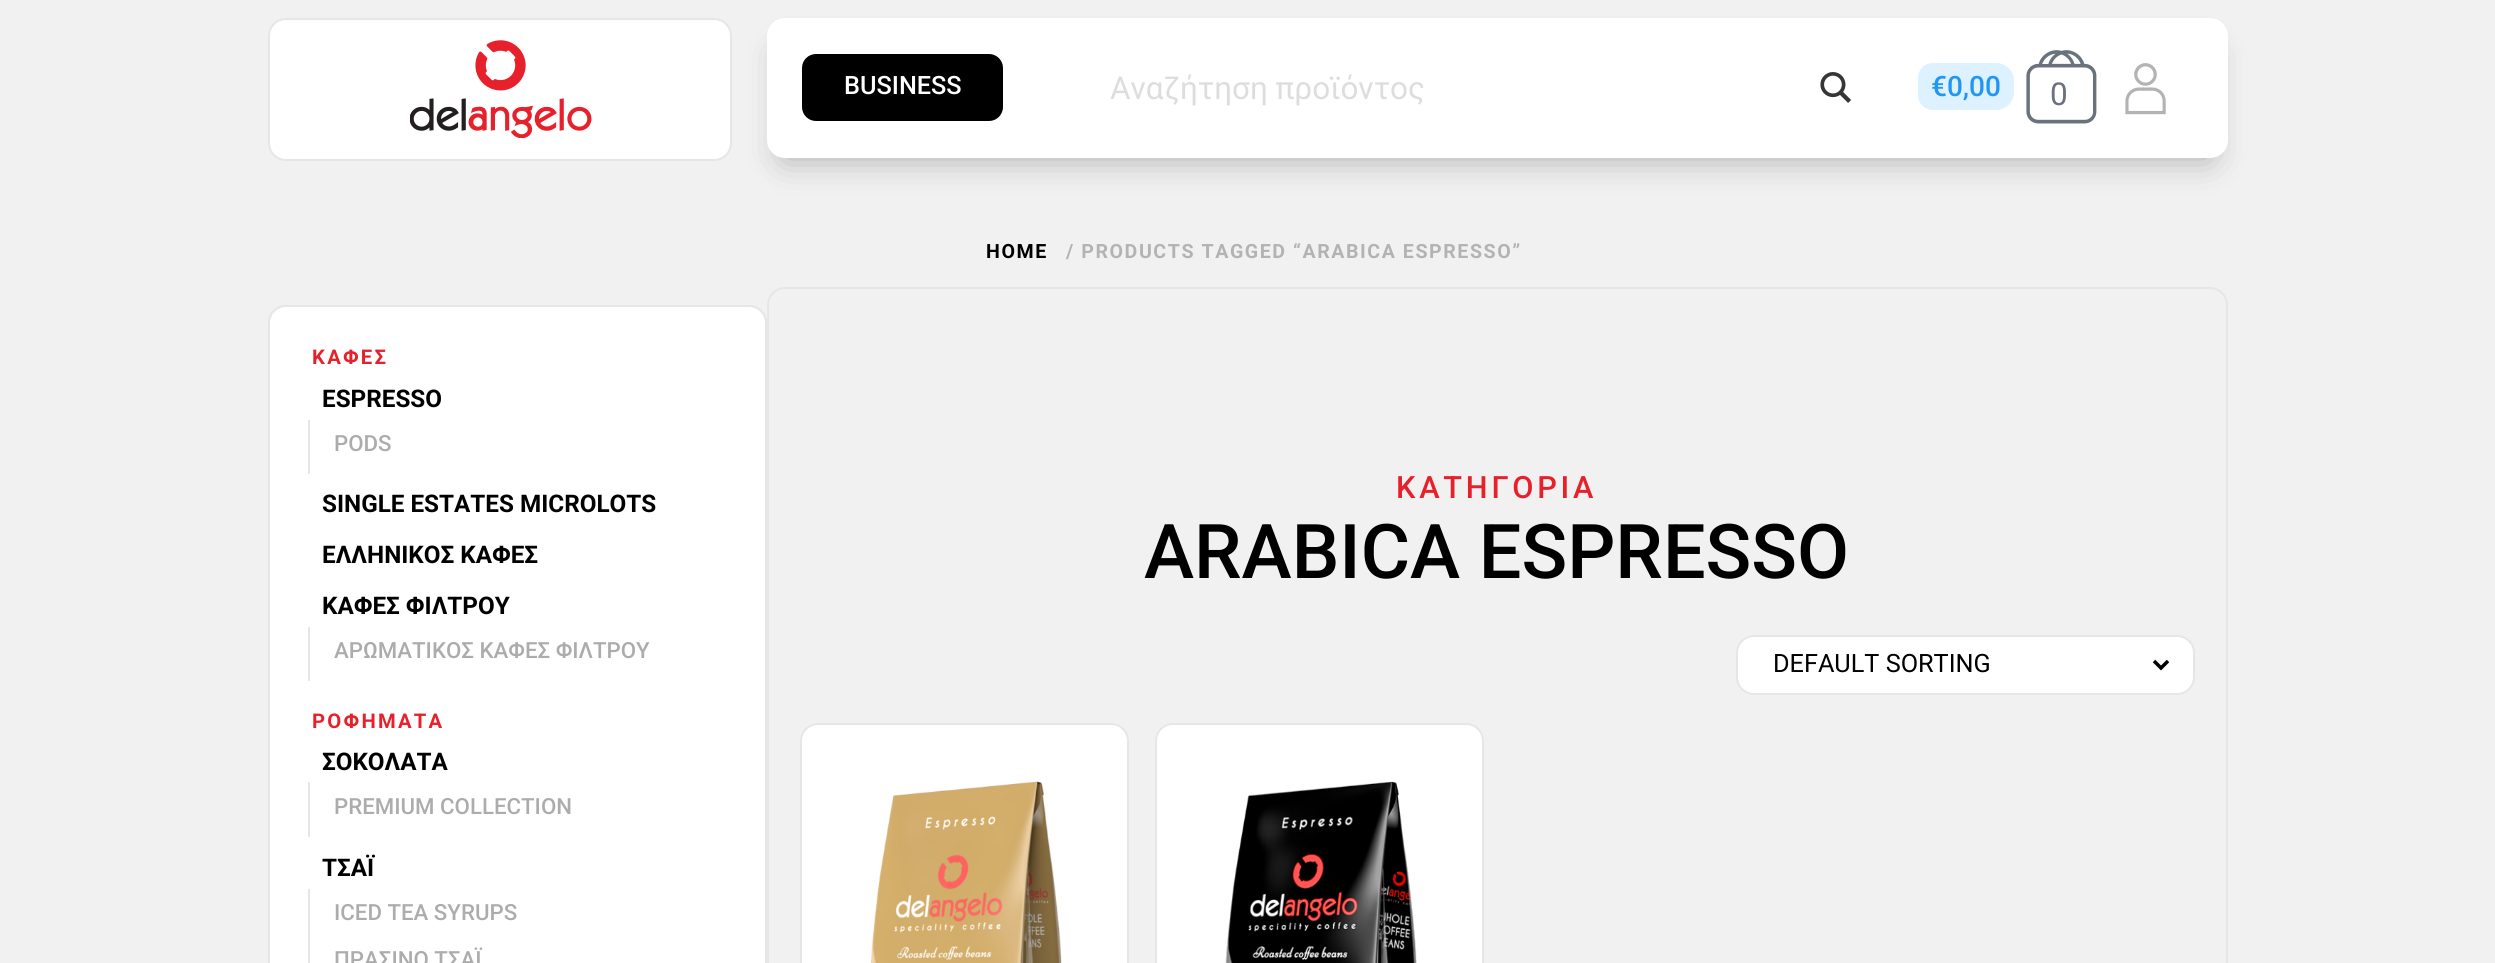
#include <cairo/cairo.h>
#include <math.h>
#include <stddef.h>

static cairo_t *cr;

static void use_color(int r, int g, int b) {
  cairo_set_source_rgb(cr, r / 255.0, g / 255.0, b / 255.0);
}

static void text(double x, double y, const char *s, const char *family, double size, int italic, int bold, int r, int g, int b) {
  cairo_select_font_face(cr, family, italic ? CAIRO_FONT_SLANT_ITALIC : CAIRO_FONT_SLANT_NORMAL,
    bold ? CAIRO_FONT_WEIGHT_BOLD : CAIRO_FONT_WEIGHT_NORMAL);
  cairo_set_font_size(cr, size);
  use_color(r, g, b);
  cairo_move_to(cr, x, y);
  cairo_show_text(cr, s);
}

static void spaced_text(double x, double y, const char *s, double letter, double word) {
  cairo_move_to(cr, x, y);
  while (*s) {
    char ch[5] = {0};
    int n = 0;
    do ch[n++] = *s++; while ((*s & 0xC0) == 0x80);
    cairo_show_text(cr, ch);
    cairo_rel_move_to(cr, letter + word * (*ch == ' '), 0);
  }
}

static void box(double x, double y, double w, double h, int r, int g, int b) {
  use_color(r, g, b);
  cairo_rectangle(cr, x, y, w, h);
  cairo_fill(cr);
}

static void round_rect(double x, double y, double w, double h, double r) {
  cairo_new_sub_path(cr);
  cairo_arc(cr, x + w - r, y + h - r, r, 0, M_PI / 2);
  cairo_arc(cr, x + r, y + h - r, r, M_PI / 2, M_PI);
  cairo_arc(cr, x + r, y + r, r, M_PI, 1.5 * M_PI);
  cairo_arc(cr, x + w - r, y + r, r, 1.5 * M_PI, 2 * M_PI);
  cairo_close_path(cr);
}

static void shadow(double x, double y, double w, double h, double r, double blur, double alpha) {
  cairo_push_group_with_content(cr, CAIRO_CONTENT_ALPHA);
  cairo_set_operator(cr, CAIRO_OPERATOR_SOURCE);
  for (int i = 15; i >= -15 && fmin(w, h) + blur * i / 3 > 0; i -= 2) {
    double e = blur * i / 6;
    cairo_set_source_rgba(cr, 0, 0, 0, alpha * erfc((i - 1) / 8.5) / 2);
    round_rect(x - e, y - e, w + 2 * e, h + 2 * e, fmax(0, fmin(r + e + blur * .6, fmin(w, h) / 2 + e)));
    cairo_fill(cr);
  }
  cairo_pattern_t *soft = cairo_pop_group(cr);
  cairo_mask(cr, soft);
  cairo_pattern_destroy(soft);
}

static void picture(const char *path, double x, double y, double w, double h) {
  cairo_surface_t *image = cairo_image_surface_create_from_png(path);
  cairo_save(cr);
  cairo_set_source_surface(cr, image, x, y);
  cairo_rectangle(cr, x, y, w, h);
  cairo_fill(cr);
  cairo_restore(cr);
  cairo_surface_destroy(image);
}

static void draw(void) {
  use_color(241, 241, 241);
  cairo_paint(cr);
  use_color(0, 0, 0);
  shadow(784, 53, 1426, 105, 0, 17.5, 0.3);
  use_color(255, 255, 255);
  round_rect(269, 19, 462, 141, 17);
  cairo_fill_preserve(cr);
  use_color(230, 230, 230);
  cairo_stroke(cr);
  picture("img_01.png", 410, 40, 182, 98);
  use_color(255, 255, 255);
  round_rect(767, 18, 1461, 140, 18);
  cairo_fill(cr);
  use_color(0, 0, 0);
  round_rect(802, 54, 201, 67, 14);
  cairo_fill(cr);
  picture("img_02.png", 1820, 72, 31, 31);
  use_color(222, 241, 255);
  cairo_new_path(cr);
  cairo_move_to(cr, 1933, 63);
  cairo_line_to(cr, 1948, 63);
  cairo_line_to(cr, 1948, 110);
  cairo_line_to(cr, 1933, 110);
  cairo_curve_to(cr, 1924.5, 110, 1918, 103.5, 1918, 95);
  cairo_line_to(cr, 1918, 78);
  cairo_curve_to(cr, 1918, 69.5, 1924.5, 63, 1933, 63);
  cairo_close_path(cr);
  cairo_fill(cr);
  cairo_new_path(cr);
  cairo_move_to(cr, 1948, 63);
  cairo_line_to(cr, 1996, 63);
  cairo_curve_to(cr, 2006, 63, 2014, 71, 2014, 81);
  cairo_line_to(cr, 2014, 92);
  cairo_curve_to(cr, 2014, 102, 2006, 110, 1996, 110);
  cairo_line_to(cr, 1948, 110);
  cairo_close_path(cr);
  cairo_fill(cr);
  picture("img_03.png", 2026, 50, 71, 74);
  picture("img_04.png", 2125, 63, 41, 52);
  round_rect(269, 306, 497, 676, 17);
  use_color(230, 230, 230);
  cairo_stroke(cr);
  use_color(255, 255, 255);
  round_rect(269, 306, 497, 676, 17);
  cairo_fill_preserve(cr);
  use_color(230, 230, 230);
  cairo_stroke(cr);
  box(308, 420, 2, 54, 230, 230, 230);
  box(308, 627, 2, 54, 230, 230, 230);
  box(308, 782, 2, 55, 230, 230, 230);
  box(308, 889, 2, 74, 230, 230, 230);
  round_rect(768, 288, 1459, 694, 17);
  cairo_stroke(cr);
  use_color(255, 255, 255);
  round_rect(1737, 636, 457, 58, 17);
  cairo_fill_preserve(cr);
  use_color(230, 230, 230);
  cairo_stroke(cr);
  cairo_new_path(cr);
  cairo_move_to(cr, 2154, 661);
  cairo_line_to(cr, 2161, 668);
  cairo_line_to(cr, 2168, 661);
  use_color(0, 0, 0);
  cairo_set_line_width(cr, 3.5);
  cairo_stroke(cr);
  use_color(255, 255, 255);
  round_rect(801, 724, 327, 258, 17);
  cairo_fill_preserve(cr);
  use_color(230, 230, 230);
  cairo_set_line_width(cr, 2);
  cairo_stroke(cr);
  picture("img_05.png", 871, 781, 191, 182);
  use_color(255, 255, 255);
  round_rect(1156, 724, 327, 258, 17);
  cairo_fill_preserve(cr);
  use_color(230, 230, 230);
  cairo_stroke(cr);
  picture("img_06.png", 1225, 781, 192, 182);
  text(844, 94, "BUSINESS", "Roboto Medium", 25.25, 0, 0, 255, 255, 255);
  text(1110, 99, "Αναζήτηση προϊόντος", "Roboto", 31.5, 0, 0, 221, 221, 221);
  text(1931, 96, "€0,00", "Roboto Medium", 28, 0, 0, 33, 150, 243);
  text(2050, 105, "0", "Roboto", 31.5, 0, 0, 105, 114, 125);
  cairo_select_font_face(cr, "Roboto", CAIRO_FONT_SLANT_NORMAL, CAIRO_FONT_WEIGHT_BOLD);
  cairo_set_font_size(cr, 19.6);
  use_color(0, 0, 0);
  spaced_text(986, 258, "HOME", 1.55, 0);
  use_color(179, 179, 179);
  spaced_text(1066, 258, "/ PRODUCTS TAGGED “ARABICA ESPRESSO”", 1.55, 0);
  cairo_set_font_size(cr, 20.25);
  use_color(231, 33, 43);
  spaced_text(312, 364, "ΚΑΦΕΣ", 2.25, 0);
  text(322, 407, "ESPRESSO", "Roboto", 24.25, 0, 1, 0, 0, 0);
  text(334, 451, "PODS", "Roboto Medium", 22.25, 0, 0, 172, 172, 172);
  text(322, 512, "SINGLE ESTATES MICROLOTS", "Roboto", 24.25, 0, 1, 0, 0, 0);
  text(322, 563, "ΕΛΛΗΝΙΚΟΣ ΚΑΦΕΣ", "Roboto", 24.25, 0, 1, 0, 0, 0);
  text(322, 614, "ΚΑΦΕΣ ΦΙΛΤΡΟΥ", "Roboto", 24.25, 0, 1, 0, 0, 0);
  text(334, 658, "ΑΡΩΜΑΤΙΚΟΣ ΚΑΦΕΣ ΦΙΛΤΡΟΥ", "Roboto Medium", 22.25, 0, 0, 172, 172, 172);
  cairo_select_font_face(cr, "Roboto", CAIRO_FONT_SLANT_NORMAL, CAIRO_FONT_WEIGHT_BOLD);
  cairo_set_font_size(cr, 20.25);
  use_color(231, 33, 43);
  spaced_text(312, 728, "ΡΟΦΗΜΑΤΑ", 2.25, 0);
  text(322, 770, "ΣΟΚΟΛΑΤΑ", "Roboto", 24.25, 0, 1, 0, 0, 0);
  text(334, 814, "PREMIUM COLLECTION", "Roboto Medium", 22.25, 0, 0, 172, 172, 172);
  text(322, 876, "ΤΣΑΪ", "Roboto", 24.25, 0, 1, 0, 0, 0);
  text(334, 920, "ICED TEA SYRUPS", "Roboto Medium", 22.25, 0, 0, 172, 172, 172);
  text(334, 967, "ΠΡΑΣΙΝΟ ΤΣΑΪ", "Roboto Medium", 22.25, 0, 0, 172, 172, 172);
  cairo_set_font_size(cr, 30.75);
  use_color(231, 33, 43);
  spaced_text(1396, 498, "ΚΑΤΗΓΟΡΙΑ", 3.75, 0);
  text(1144, 578, "ARABICA ESPRESSO", "Roboto Medium", 75.5, 0, 0, 0, 0, 0);
  text(1773, 672, "DEFAULT SORTING", "Roboto", 25.25, 0, 0, 0, 0, 0);
}

int main(void) {
  cairo_surface_t *surface = cairo_image_surface_create(CAIRO_FORMAT_RGB24, 2495, 963);
  cr = cairo_create(surface);
  cairo_font_options_t *options = cairo_font_options_create();
  cairo_font_options_set_hint_metrics(options, CAIRO_HINT_METRICS_OFF);
  cairo_font_options_set_hint_style(options, CAIRO_HINT_STYLE_NONE);
  cairo_set_font_options(cr, options);
  cairo_set_miter_limit(cr, 4);
  draw();
  cairo_surface_write_to_png(surface, "out.png");
  cairo_font_options_destroy(options);
  cairo_destroy(cr);
  cairo_surface_destroy(surface);
  return 0;
}
